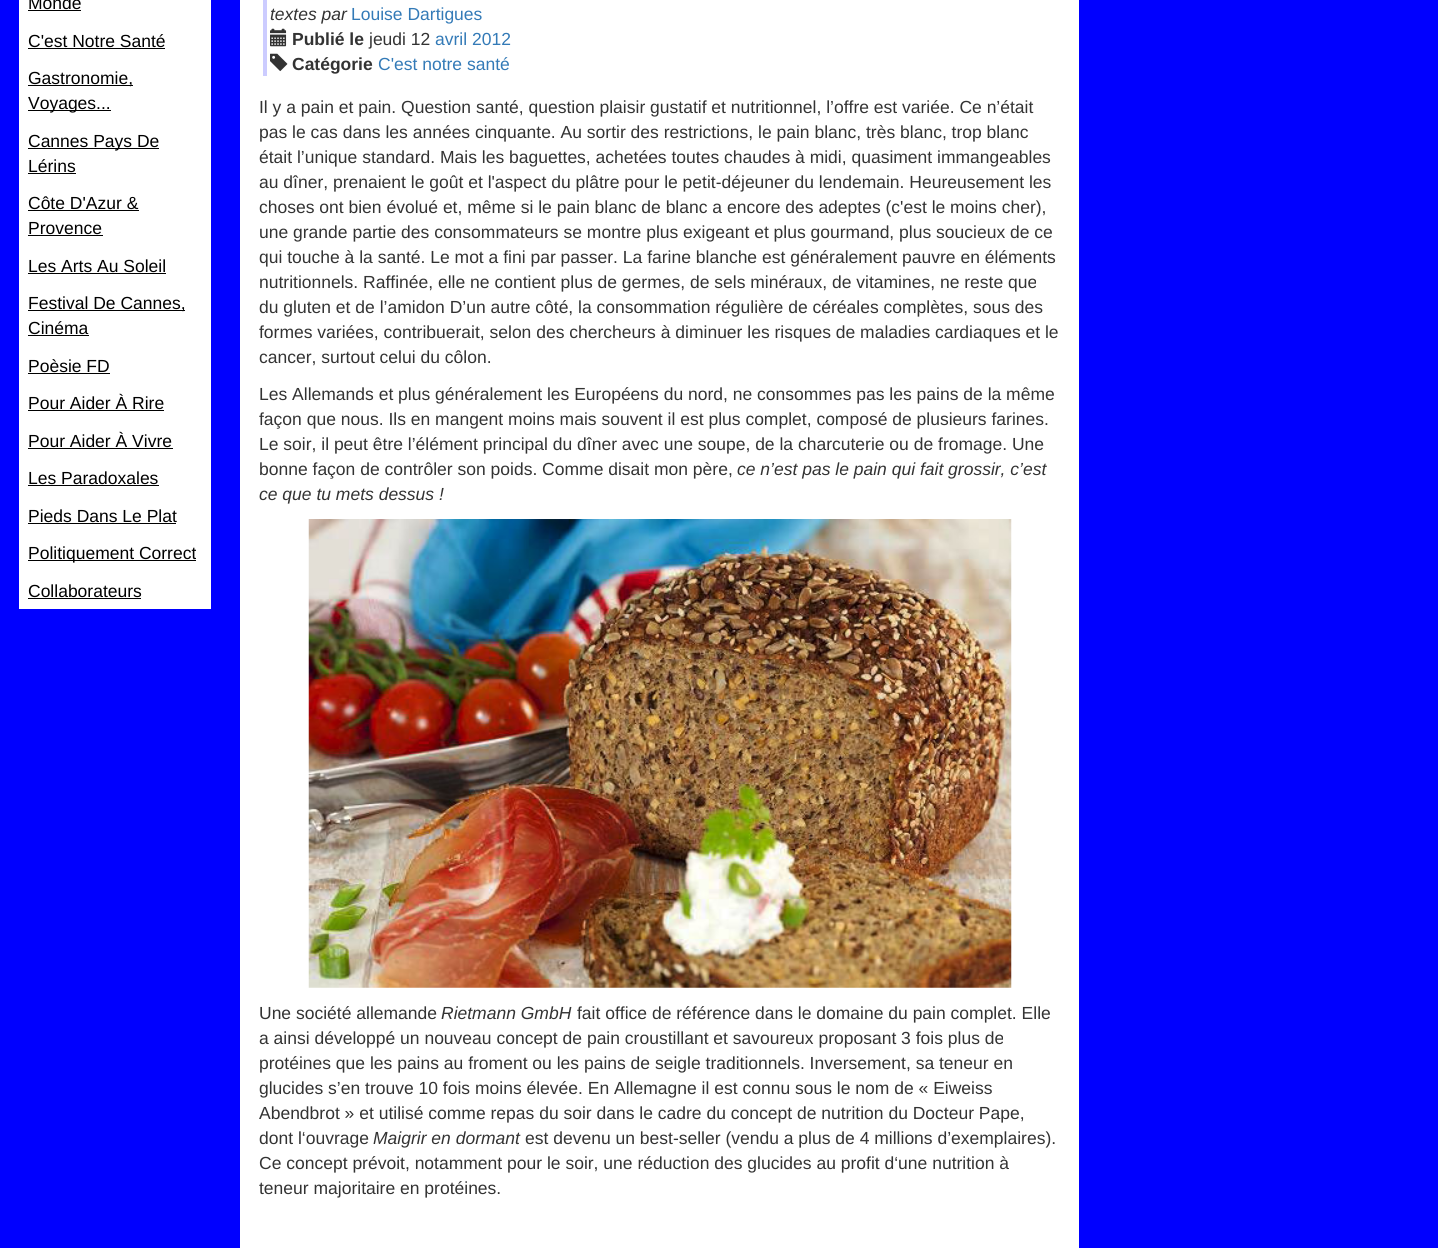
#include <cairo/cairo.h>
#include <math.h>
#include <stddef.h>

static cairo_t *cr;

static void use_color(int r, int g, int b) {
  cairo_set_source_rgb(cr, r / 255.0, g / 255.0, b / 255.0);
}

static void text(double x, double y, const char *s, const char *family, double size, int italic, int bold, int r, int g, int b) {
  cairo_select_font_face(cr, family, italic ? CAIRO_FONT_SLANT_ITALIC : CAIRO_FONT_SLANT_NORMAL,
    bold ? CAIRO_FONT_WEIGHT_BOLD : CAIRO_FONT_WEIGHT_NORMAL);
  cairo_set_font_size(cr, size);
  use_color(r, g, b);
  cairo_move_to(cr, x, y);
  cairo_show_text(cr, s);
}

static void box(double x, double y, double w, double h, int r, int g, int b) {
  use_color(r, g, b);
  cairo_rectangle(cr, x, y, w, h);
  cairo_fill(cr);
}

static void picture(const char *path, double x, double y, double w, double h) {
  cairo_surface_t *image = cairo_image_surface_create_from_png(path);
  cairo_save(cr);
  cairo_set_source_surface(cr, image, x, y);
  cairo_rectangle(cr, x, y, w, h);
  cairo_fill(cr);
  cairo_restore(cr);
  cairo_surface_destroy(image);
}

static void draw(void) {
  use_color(0, 0, 255);
  cairo_paint(cr);
  box(19, 0, 192, 609, 255, 255, 255);
  box(28, 10, 53, 1, 0, 0, 0);
  box(28, 48, 137, 1, 0, 0, 0);
  box(28, 85, 105, 1, 0, 0, 0);
  box(28, 110, 83, 1, 0, 0, 0);
  box(28, 148, 131, 1, 0, 0, 0);
  box(28, 173, 48, 1, 0, 0, 0);
  box(28, 210, 111, 1, 0, 0, 0);
  box(28, 235, 75, 1, 0, 0, 0);
  box(28, 273, 138, 1, 0, 0, 0);
  box(28, 310, 157, 1, 0, 0, 0);
  box(28, 335, 61, 1, 0, 0, 0);
  box(28, 373, 82, 1, 0, 0, 0);
  box(28, 410, 136, 1, 0, 0, 0);
  box(28, 448, 145, 1, 0, 0, 0);
  box(28, 485, 131, 1, 0, 0, 0);
  box(28, 523, 148, 1, 0, 0, 0);
  box(28, 560, 168, 1, 0, 0, 0);
  box(28, 598, 113, 1, 0, 0, 0);
  box(240, 0, 839, 1248, 255, 255, 255);
  box(263, 0, 4, 76, 204, 204, 255);
  picture("img_01.png", 270, 28, 17, 19);
  picture("img_02.png", 270, 53, 18, 19);
  picture("img_03.png", 308, 519, 704, 469);
  text(28, 9, "Monde", "Liberation Sans", 17.5, 0, 0, 0, 0, 0);
  text(28, 47, "C'est Notre Santé", "Liberation Sans", 17.5, 0, 0, 0, 0, 0);
  text(28, 84, "Gastronomie,", "Liberation Sans", 17.5, 0, 0, 0, 0, 0);
  text(28, 109, "Voyages...", "Liberation Sans", 17.5, 0, 0, 0, 0, 0);
  text(28, 147, "Cannes Pays De", "Liberation Sans", 17.5, 0, 0, 0, 0, 0);
  text(28, 172, "Lérins", "Liberation Sans", 17.5, 0, 0, 0, 0, 0);
  text(28, 209, "Côte D'Azur &", "Liberation Sans", 17.5, 0, 0, 0, 0, 0);
  text(28, 234, "Provence", "Liberation Sans", 17.5, 0, 0, 0, 0, 0);
  text(28, 272, "Les Arts Au Soleil", "Liberation Sans", 17.5, 0, 0, 0, 0, 0);
  text(28, 309, "Festival De Cannes,", "Liberation Sans", 17.5, 0, 0, 0, 0, 0);
  text(28, 334, "Cinéma", "Liberation Sans", 17.5, 0, 0, 0, 0, 0);
  text(28, 372, "Poèsie FD", "Liberation Sans", 17.5, 0, 0, 0, 0, 0);
  text(28, 409, "Pour Aider À Rire", "Liberation Sans", 17.5, 0, 0, 0, 0, 0);
  text(28, 447, "Pour Aider À Vivre", "Liberation Sans", 17.5, 0, 0, 0, 0, 0);
  text(28, 484, "Les Paradoxales", "Liberation Sans", 17.5, 0, 0, 0, 0, 0);
  text(28, 522, "Pieds Dans Le Plat", "Liberation Sans", 17.5, 0, 0, 0, 0, 0);
  text(28, 559, "Politiquement Correct", "Liberation Sans", 17.5, 0, 0, 0, 0, 0);
  text(28, 597, "Collaborateurs", "Liberation Sans", 17.5, 0, 0, 0, 0, 0);
  text(270, 20, "textes par", "Liberation Sans", 17.5, 1, 0, 51, 51, 51);
  text(351, 20, "Louise Dartigues", "Liberation Sans", 17.5, 0, 0, 51, 122, 183);
  text(292, 45, "Publié le", "Liberation Sans", 17.5, 0, 1, 51, 51, 51);
  text(369, 45, "jeudi 12", "Liberation Sans", 17.5, 0, 0, 51, 51, 51);
  text(435, 45, "avril 2012", "Liberation Sans", 17.5, 0, 0, 51, 122, 183);
  text(292, 70, "Catégorie", "Liberation Sans", 17.5, 0, 1, 51, 51, 51);
  text(378, 70, "C'est notre santé", "Liberation Sans", 17.5, 0, 0, 51, 122, 183);
  text(259, 113, "Il y a pain et pain. Question santé, question plaisir gustatif et nutritionnel, l’offre est variée. Ce n’était", "Liberation Sans", 17.5, 0, 0, 51, 51, 51);
  text(259, 138, "pas le cas dans les années cinquante. Au sortir des restrictions, le pain blanc, très blanc, trop blanc", "Liberation Sans", 17.5, 0, 0, 51, 51, 51);
  text(259, 163, "était l’unique standard. Mais les baguettes, achetées toutes chaudes à midi, quasiment immangeables", "Liberation Sans", 17.5, 0, 0, 51, 51, 51);
  text(259, 188, "au dîner, prenaient le goût et l'aspect du plâtre pour le petit-déjeuner du lendemain. Heureusement les", "Liberation Sans", 17.5, 0, 0, 51, 51, 51);
  text(259, 213, "choses ont bien évolué et, même si le pain blanc de blanc a encore des adeptes (c'est le moins cher),", "Liberation Sans", 17.5, 0, 0, 51, 51, 51);
  text(259, 238, "une grande partie des consommateurs se montre plus exigeant et plus gourmand, plus soucieux de ce", "Liberation Sans", 17.5, 0, 0, 51, 51, 51);
  text(259, 263, "qui touche à la santé. Le mot a fini par passer. La farine blanche est généralement pauvre en éléments", "Liberation Sans", 17.5, 0, 0, 51, 51, 51);
  text(259, 288, "nutritionnels. Raffinée, elle ne contient plus de germes, de sels minéraux, de vitamines, ne reste que", "Liberation Sans", 17.5, 0, 0, 51, 51, 51);
  text(259, 313, "du gluten et de l’amidon D’un autre côté, la consommation régulière de céréales complètes, sous des", "Liberation Sans", 17.5, 0, 0, 51, 51, 51);
  text(259, 338, "formes variées, contribuerait, selon des chercheurs à diminuer les risques de maladies cardiaques et le", "Liberation Sans", 17.5, 0, 0, 51, 51, 51);
  text(259, 363, "cancer, surtout celui du côlon.", "Liberation Sans", 17.5, 0, 0, 51, 51, 51);
  text(259, 400, "Les Allemands et plus généralement les Européens du nord, ne consommes pas les pains de la même", "Liberation Sans", 17.5, 0, 0, 51, 51, 51);
  text(259, 425, "façon que nous. Ils en mangent moins mais souvent il est plus complet, composé de plusieurs farines.", "Liberation Sans", 17.5, 0, 0, 51, 51, 51);
  text(259, 450, "Le soir, il peut être l’élément principal du dîner avec une soupe, de la charcuterie ou de fromage. Une", "Liberation Sans", 17.5, 0, 0, 51, 51, 51);
  text(259, 475, "bonne façon de contrôler son poids. Comme disait mon père,", "Liberation Sans", 17.5, 0, 0, 51, 51, 51);
  text(737, 475, "ce n’est pas le pain qui fait grossir, c’est", "Liberation Sans", 17.5, 1, 0, 51, 51, 51);
  text(259, 500, "ce que tu mets dessus !", "Liberation Sans", 17.5, 1, 0, 51, 51, 51);
  text(259, 1019, "Une société allemande", "Liberation Sans", 17.5, 0, 0, 51, 51, 51);
  text(441, 1019, "Rietmann GmbH", "Liberation Sans", 17.5, 1, 0, 51, 51, 51);
  text(577, 1019, "fait office de référence dans le domaine du pain complet. Elle", "Liberation Sans", 17.5, 0, 0, 51, 51, 51);
  text(259, 1044, "a ainsi développé un nouveau concept de pain croustillant et savoureux proposant 3 fois plus de", "Liberation Sans", 17.5, 0, 0, 51, 51, 51);
  text(259, 1069, "protéines que les pains au froment ou les pains de seigle traditionnels. Inversement, sa teneur en", "Liberation Sans", 17.5, 0, 0, 51, 51, 51);
  text(259, 1094, "glucides s’en trouve 10 fois moins élevée. En Allemagne il est connu sous le nom de « Eiweiss", "Liberation Sans", 17.5, 0, 0, 51, 51, 51);
  text(259, 1119, "Abendbrot » et utilisé comme repas du soir dans le cadre du concept de nutrition du Docteur Pape,", "Liberation Sans", 17.5, 0, 0, 51, 51, 51);
  text(259, 1144, "dont l‘ouvrage", "Liberation Sans", 17.5, 0, 0, 51, 51, 51);
  text(373, 1144, "Maigrir en dormant", "Liberation Sans", 17.5, 1, 0, 51, 51, 51);
  text(525, 1144, "est devenu un best-seller (vendu a plus de 4 millions d’exemplaires).", "Liberation Sans", 17.5, 0, 0, 51, 51, 51);
  text(259, 1169, "Ce concept prévoit, notamment pour le soir, une réduction des glucides au profit d‘une nutrition à", "Liberation Sans", 17.5, 0, 0, 51, 51, 51);
  text(259, 1194, "teneur majoritaire en protéines.", "Liberation Sans", 17.5, 0, 0, 51, 51, 51);
}

int main(void) {
  cairo_surface_t *surface = cairo_image_surface_create(CAIRO_FORMAT_RGB24, 1438, 1248);
  cr = cairo_create(surface);
  cairo_font_options_t *options = cairo_font_options_create();
  cairo_font_options_set_hint_metrics(options, CAIRO_HINT_METRICS_OFF);
  cairo_font_options_set_hint_style(options, CAIRO_HINT_STYLE_NONE);
  cairo_set_font_options(cr, options);
  cairo_set_miter_limit(cr, 4);
  draw();
  cairo_surface_write_to_png(surface, "out.png");
  cairo_font_options_destroy(options);
  cairo_destroy(cr);
  cairo_surface_destroy(surface);
  return 0;
}
